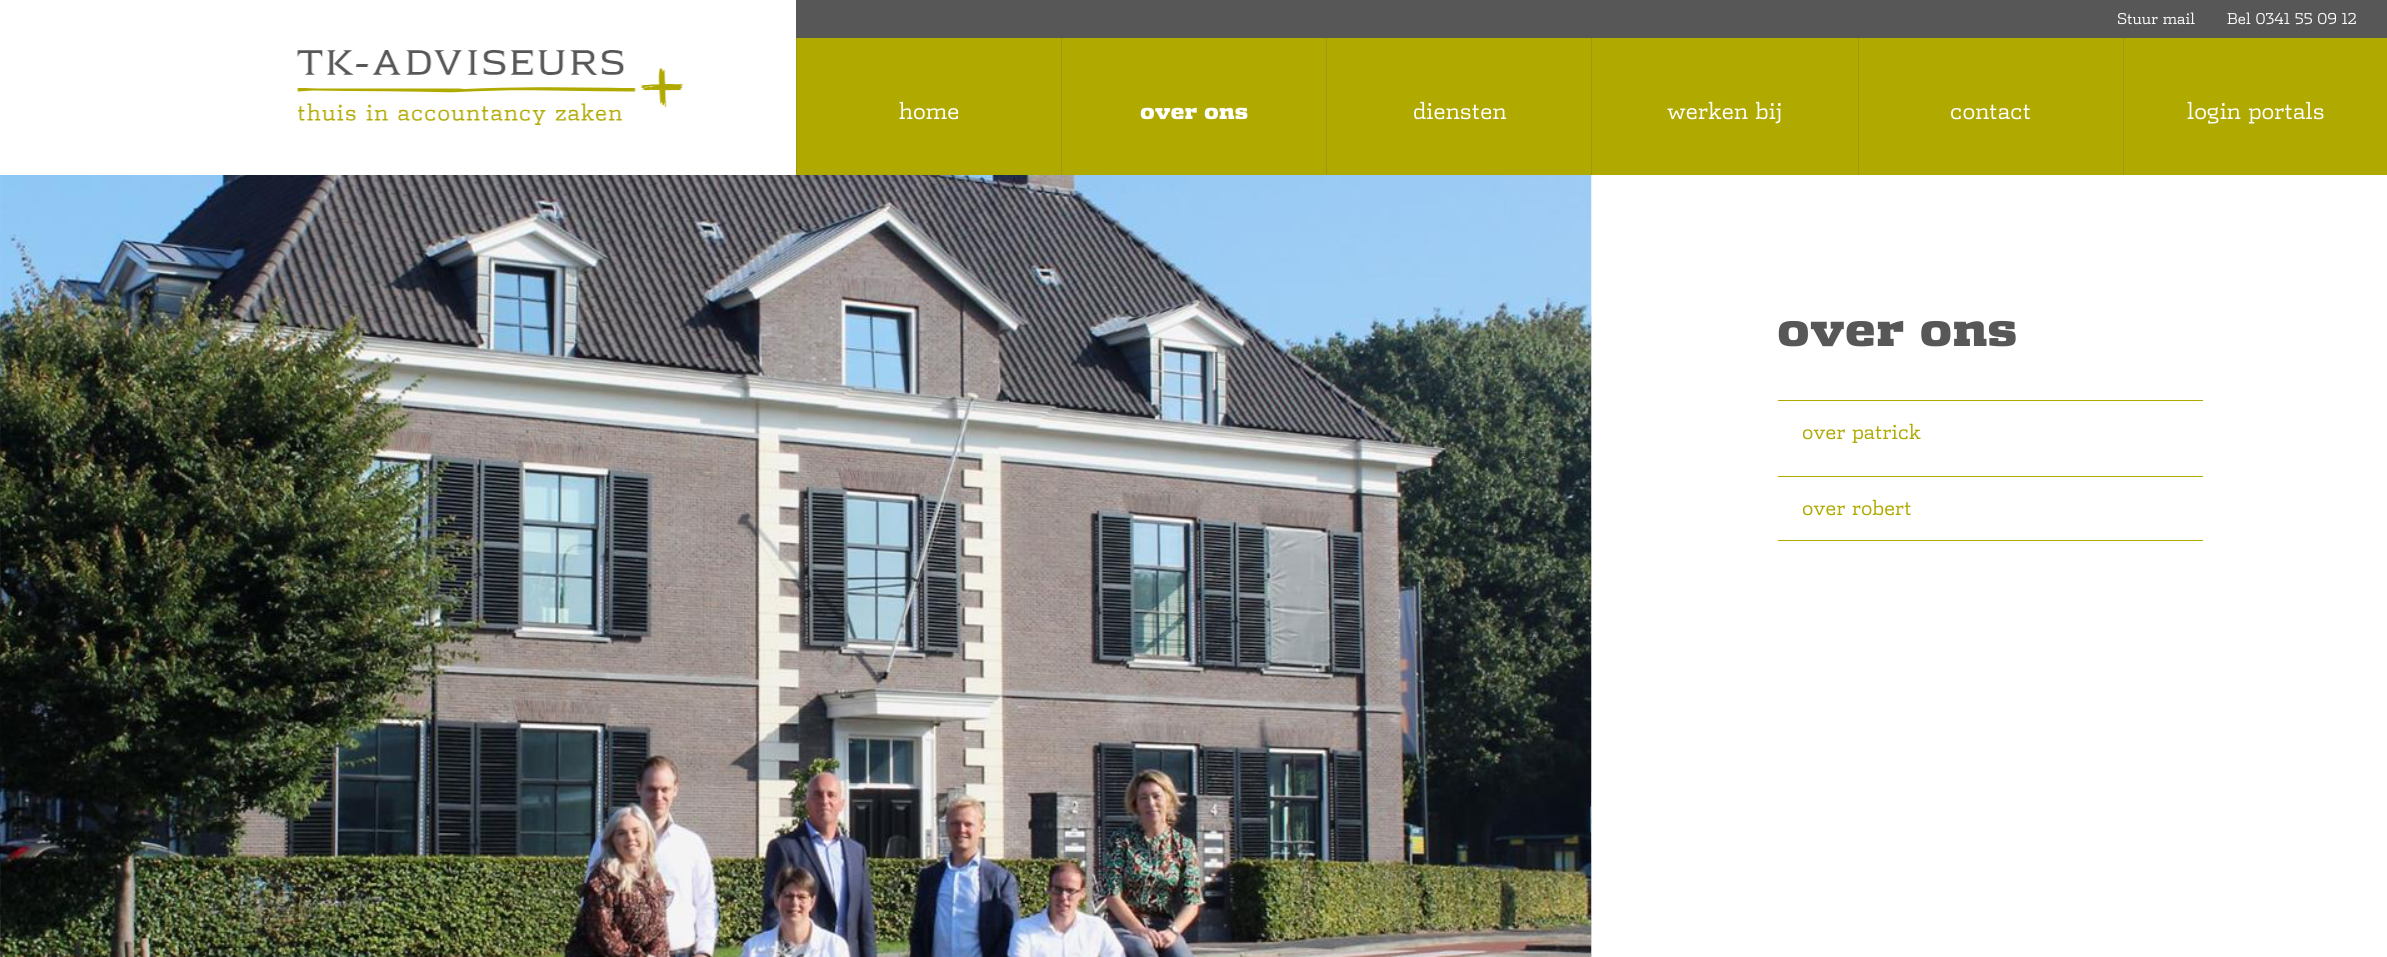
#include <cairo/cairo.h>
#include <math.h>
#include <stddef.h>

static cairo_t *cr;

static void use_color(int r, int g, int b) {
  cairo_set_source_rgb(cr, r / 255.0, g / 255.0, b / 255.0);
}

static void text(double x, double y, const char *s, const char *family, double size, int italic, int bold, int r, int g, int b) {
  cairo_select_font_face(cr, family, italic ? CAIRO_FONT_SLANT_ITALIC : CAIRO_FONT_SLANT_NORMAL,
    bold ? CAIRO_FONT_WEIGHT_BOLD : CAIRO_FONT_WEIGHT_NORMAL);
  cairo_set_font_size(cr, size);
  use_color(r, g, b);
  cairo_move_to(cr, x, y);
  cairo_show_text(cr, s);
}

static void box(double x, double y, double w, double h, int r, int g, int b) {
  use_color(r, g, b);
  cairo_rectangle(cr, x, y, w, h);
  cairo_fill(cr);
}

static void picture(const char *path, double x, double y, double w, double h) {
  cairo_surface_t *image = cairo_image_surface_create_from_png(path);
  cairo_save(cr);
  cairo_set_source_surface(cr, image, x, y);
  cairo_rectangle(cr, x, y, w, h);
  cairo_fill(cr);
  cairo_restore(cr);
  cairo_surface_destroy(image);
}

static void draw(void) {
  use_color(255, 255, 255);
  cairo_paint(cr);
  picture("img_01.png", 297, 50, 387, 75);
  box(796, 0, 1591, 38, 87, 87, 87);
  box(797, 38, 1590, 137, 175, 169, 0);
  box(796, 38, 1, 137, 157, 153, 17);
  box(1061, 38, 1, 137, 157, 153, 17);
  box(1326, 38, 1, 137, 157, 153, 17);
  box(1591, 38, 1, 137, 157, 153, 17);
  box(1858, 38, 1, 137, 157, 153, 17);
  box(2123, 38, 1, 137, 157, 153, 17);
  picture("img_02.png", 0, 175, 1592, 782);
  box(1778, 400, 425, 1, 175, 169, 0);
  box(1778, 476, 425, 1, 175, 169, 0);
  box(1778, 540, 425, 1, 175, 169, 0);
  text(2117, 24, "Stuur mail", "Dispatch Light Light", 15, 0, 0, 255, 255, 255);
  text(2227, 24, "Bel 0341 55 09 12", "Dispatch Light Light", 15, 0, 0, 255, 255, 255);
  text(899, 119, "home", "Dispatch Light Light", 22.5, 0, 0, 255, 255, 255);
  text(1140, 119, "over ons", "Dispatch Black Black", 22.5, 0, 0, 255, 255, 255);
  text(1413, 119, "diensten", "Dispatch Light Light", 22.5, 0, 0, 255, 255, 255);
  text(1667, 119, "werken bij", "Dispatch Light Light", 22.5, 0, 0, 255, 255, 255);
  text(1950, 119, "contact", "Dispatch Light Light", 22.5, 0, 0, 255, 255, 255);
  text(2187, 119, "login portals", "Dispatch Light Light", 22.5, 0, 0, 255, 255, 255);
  text(1777, 346, "over ons", "Dispatch Black Black", 50, 0, 0, 87, 87, 87);
  text(1802, 439, "over patrick", "Dispatch Light Light", 20, 0, 0, 175, 169, 0);
  text(1802, 515, "over robert", "Dispatch Light Light", 20, 0, 0, 175, 169, 0);
}

int main(void) {
  cairo_surface_t *surface = cairo_image_surface_create(CAIRO_FORMAT_RGB24, 2387, 957);
  cr = cairo_create(surface);
  cairo_font_options_t *options = cairo_font_options_create();
  cairo_font_options_set_hint_metrics(options, CAIRO_HINT_METRICS_OFF);
  cairo_font_options_set_hint_style(options, CAIRO_HINT_STYLE_NONE);
  cairo_set_font_options(cr, options);
  cairo_set_miter_limit(cr, 4);
  draw();
  cairo_surface_write_to_png(surface, "out.png");
  cairo_font_options_destroy(options);
  cairo_destroy(cr);
  cairo_surface_destroy(surface);
  return 0;
}
